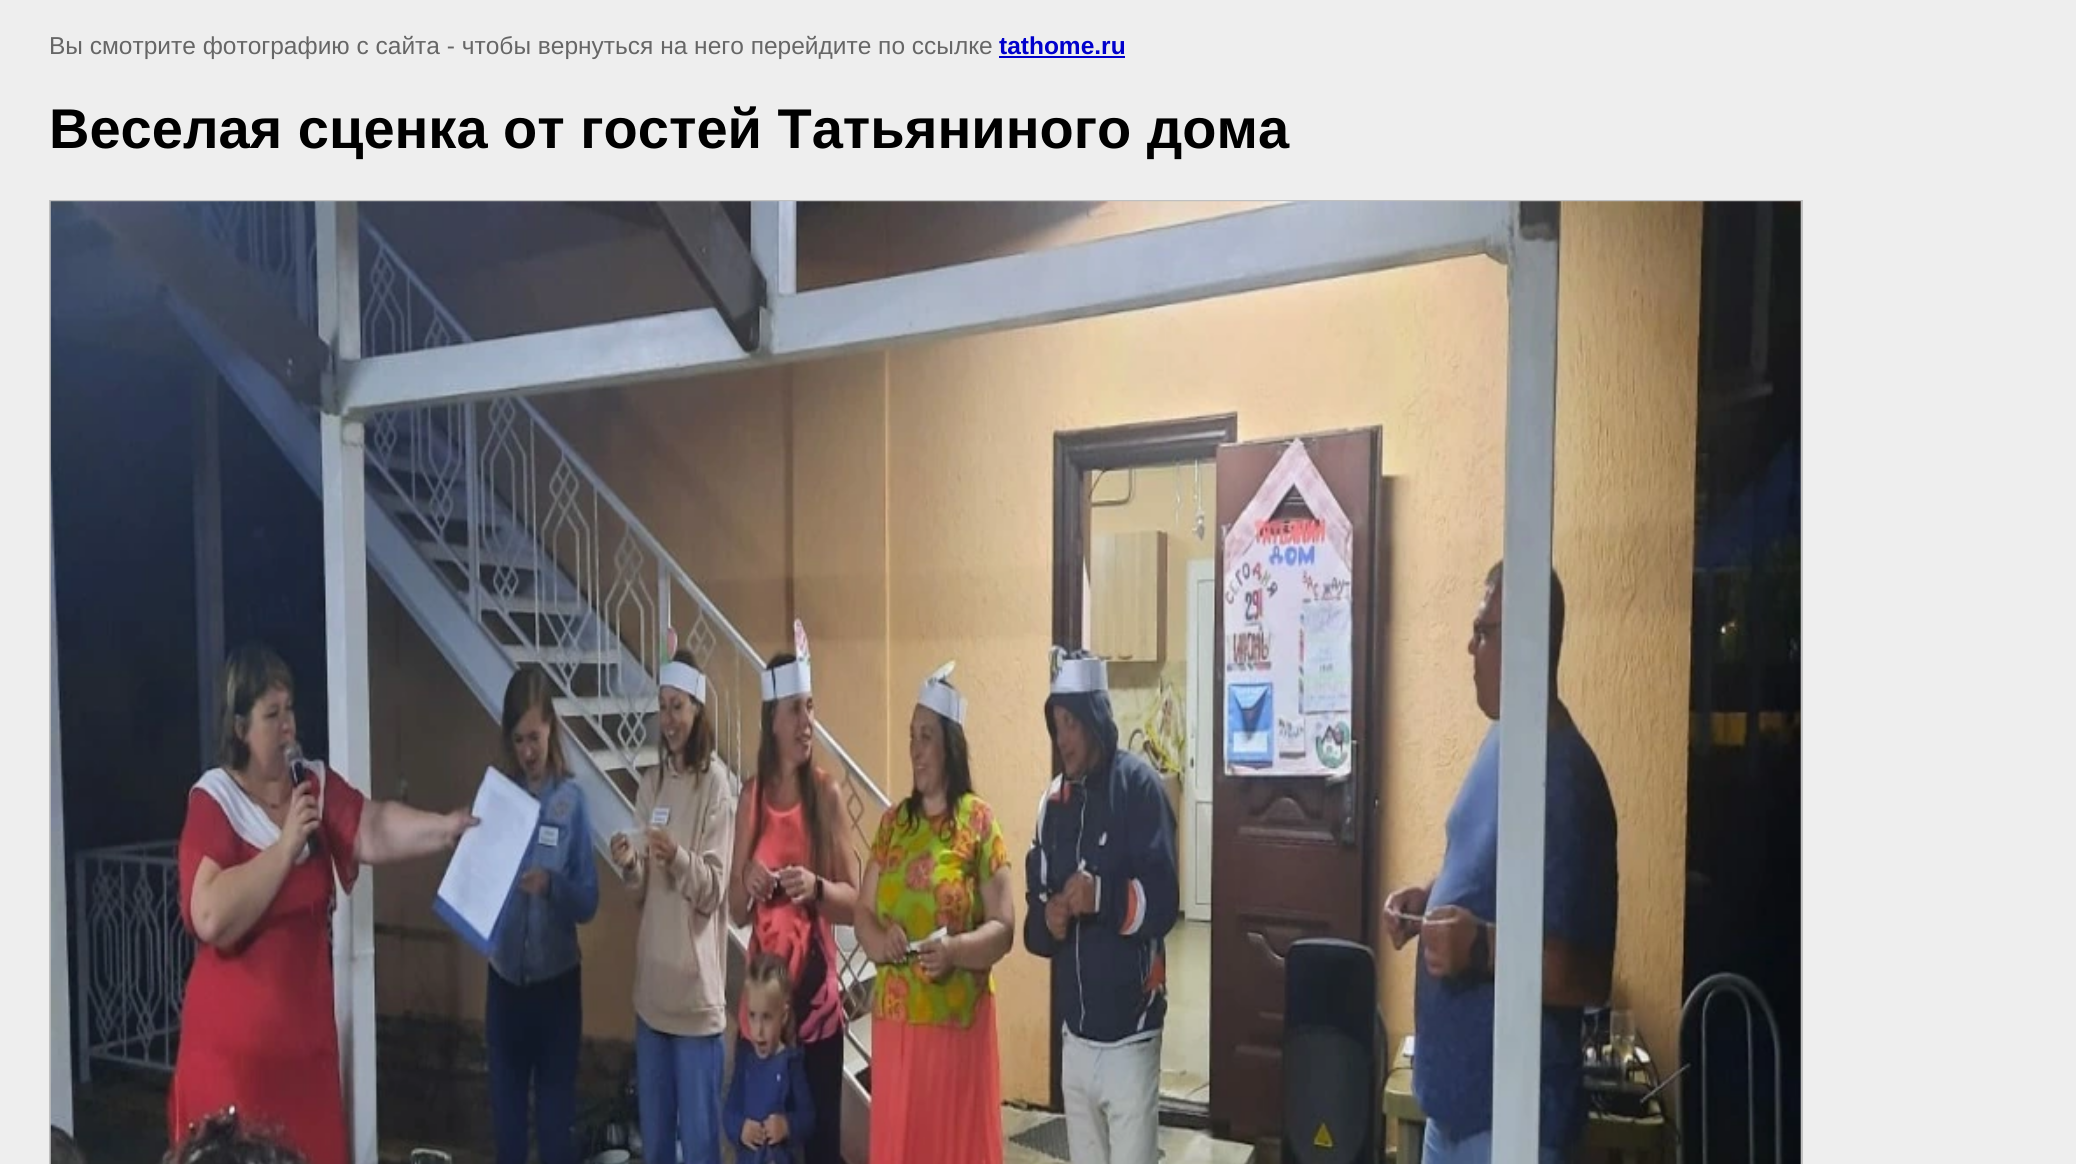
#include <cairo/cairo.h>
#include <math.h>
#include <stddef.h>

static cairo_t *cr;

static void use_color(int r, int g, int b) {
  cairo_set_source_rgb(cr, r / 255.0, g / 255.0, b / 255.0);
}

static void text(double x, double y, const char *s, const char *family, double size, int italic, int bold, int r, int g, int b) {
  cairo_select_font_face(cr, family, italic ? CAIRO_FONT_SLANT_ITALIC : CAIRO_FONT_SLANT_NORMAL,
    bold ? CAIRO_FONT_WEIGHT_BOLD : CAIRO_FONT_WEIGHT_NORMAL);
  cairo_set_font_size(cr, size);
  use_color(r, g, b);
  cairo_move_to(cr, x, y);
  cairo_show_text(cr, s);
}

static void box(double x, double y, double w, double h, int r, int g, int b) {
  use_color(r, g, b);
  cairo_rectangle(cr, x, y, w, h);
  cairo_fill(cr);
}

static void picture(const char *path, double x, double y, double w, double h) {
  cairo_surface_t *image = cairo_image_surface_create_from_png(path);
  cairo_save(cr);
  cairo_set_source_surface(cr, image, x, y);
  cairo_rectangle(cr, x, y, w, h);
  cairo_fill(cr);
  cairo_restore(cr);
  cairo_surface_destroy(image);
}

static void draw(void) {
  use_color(238, 238, 238);
  cairo_paint(cr);
  box(999, 56, 126, 2, 0, 0, 204);
  cairo_rectangle(cr, 50, 201, 1752, 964);
  use_color(192, 192, 192);
  cairo_stroke(cr);
  picture("img_01.png", 50, 201, 1751, 963);
  text(49, 54, "Вы смотрите фотографию с сайта - чтобы вернуться на него перейдите по ссылке", "Liberation Sans", 24.5, 0, 0, 102, 102, 102);
  text(999, 54, "tathome.ru", "Liberation Sans", 24.5, 0, 1, 0, 0, 204);
  text(49, 148, "Веселая сценка от гостей Татьяниного дома", "Liberation Sans", 56, 0, 1, 0, 0, 0);
}

int main(void) {
  cairo_surface_t *surface = cairo_image_surface_create(CAIRO_FORMAT_RGB24, 2076, 1164);
  cr = cairo_create(surface);
  cairo_font_options_t *options = cairo_font_options_create();
  cairo_font_options_set_hint_metrics(options, CAIRO_HINT_METRICS_OFF);
  cairo_font_options_set_hint_style(options, CAIRO_HINT_STYLE_NONE);
  cairo_set_font_options(cr, options);
  cairo_set_miter_limit(cr, 4);
  draw();
  cairo_surface_write_to_png(surface, "out.png");
  cairo_font_options_destroy(options);
  cairo_destroy(cr);
  cairo_surface_destroy(surface);
  return 0;
}
